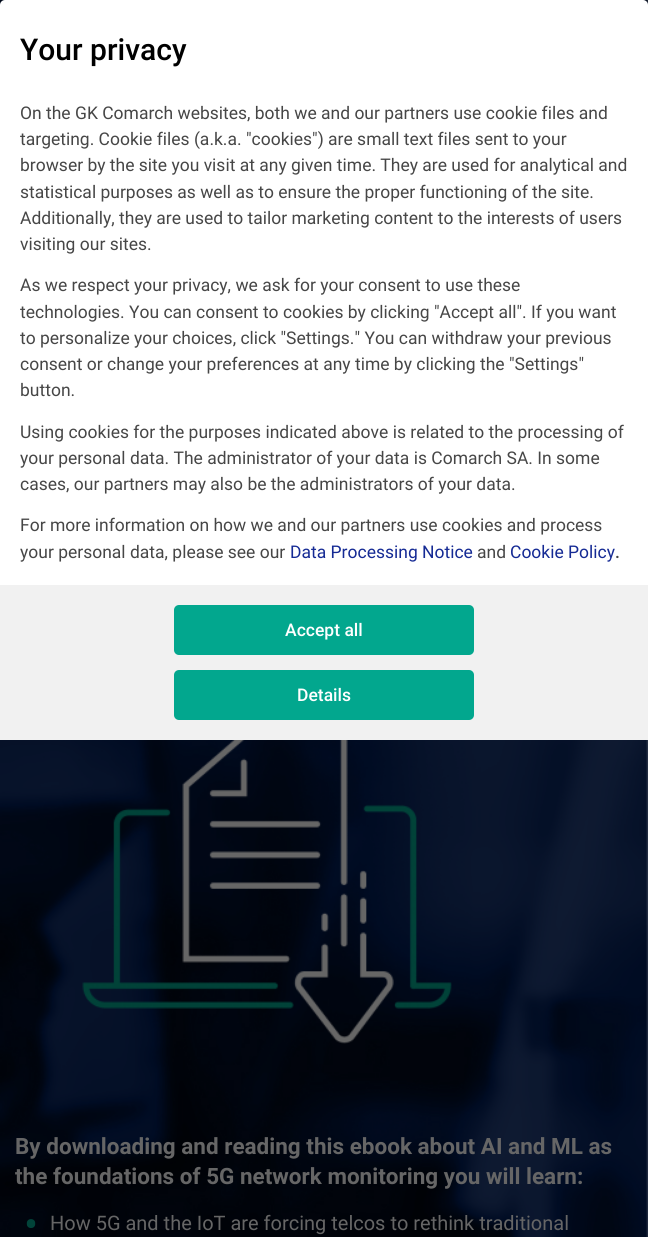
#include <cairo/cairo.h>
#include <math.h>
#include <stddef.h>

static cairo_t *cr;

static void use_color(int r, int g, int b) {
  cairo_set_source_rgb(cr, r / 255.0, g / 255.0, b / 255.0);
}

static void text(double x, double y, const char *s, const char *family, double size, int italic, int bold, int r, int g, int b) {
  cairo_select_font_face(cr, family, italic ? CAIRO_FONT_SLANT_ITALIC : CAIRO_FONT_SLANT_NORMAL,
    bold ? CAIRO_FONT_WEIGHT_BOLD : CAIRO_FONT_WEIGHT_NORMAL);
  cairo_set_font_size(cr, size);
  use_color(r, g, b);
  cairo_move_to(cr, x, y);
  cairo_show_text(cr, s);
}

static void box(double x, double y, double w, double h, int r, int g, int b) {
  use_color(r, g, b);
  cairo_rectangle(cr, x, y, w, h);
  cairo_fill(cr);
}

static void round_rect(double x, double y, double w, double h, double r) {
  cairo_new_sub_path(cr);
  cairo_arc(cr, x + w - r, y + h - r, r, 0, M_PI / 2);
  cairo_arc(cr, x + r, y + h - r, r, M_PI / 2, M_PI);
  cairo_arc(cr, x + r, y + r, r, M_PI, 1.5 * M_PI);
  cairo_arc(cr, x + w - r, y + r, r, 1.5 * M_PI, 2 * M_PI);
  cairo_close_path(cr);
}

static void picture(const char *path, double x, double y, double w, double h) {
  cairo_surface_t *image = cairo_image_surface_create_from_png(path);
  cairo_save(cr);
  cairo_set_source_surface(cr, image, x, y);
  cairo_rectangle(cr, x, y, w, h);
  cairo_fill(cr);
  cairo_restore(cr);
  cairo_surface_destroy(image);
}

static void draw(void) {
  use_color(255, 255, 255);
  cairo_paint(cr);
  picture("img_01.png", 0, 0, 648, 1237);
  use_color(255, 255, 255);
  round_rect(0, 0, 648, 740, 5);
  cairo_fill(cr);
  box(0, 585, 648, 155, 241, 241, 241);
  use_color(2, 167, 142);
  round_rect(174, 605, 300, 50, 5);
  cairo_fill(cr);
  round_rect(174, 670, 300, 50, 5);
  cairo_fill(cr);
  picture("img_02.png", 82, 740, 370, 304);
  text(20, 60, "Your privacy", "Roboto Medium", 30, 0, 0, 0, 0, 0);
  text(20, 119, "On the GK Comarch websites, both we and our partners use cookie files and", "Roboto", 17.5, 0, 0, 70, 70, 70);
  text(20, 145, "targeting. Cookie files (a.k.a. \"cookies\") are small text files sent to your", "Roboto", 17.5, 0, 0, 70, 70, 70);
  text(20, 171, "browser by the site you visit at any given time. They are used for analytical and", "Roboto", 17.5, 0, 0, 70, 70, 70);
  text(20, 198, "statistical purposes as well as to ensure the proper functioning of the site.", "Roboto", 17.5, 0, 0, 70, 70, 70);
  text(20, 224, "Additionally, they are used to tailor marketing content to the interests of users", "Roboto", 17.5, 0, 0, 70, 70, 70);
  text(20, 250, "visiting our sites.", "Roboto", 17.5, 0, 0, 70, 70, 70);
  text(20, 291, "As we respect your privacy, we ask for your consent to use these", "Roboto", 17.5, 0, 0, 70, 70, 70);
  text(20, 318, "technologies. You can consent to cookies by clicking \"Accept all\". If you want", "Roboto", 17.5, 0, 0, 70, 70, 70);
  text(20, 344, "to personalize your choices, click \"Settings.\" You can withdraw your previous", "Roboto", 17.5, 0, 0, 70, 70, 70);
  text(20, 370, "consent or change your preferences at any time by clicking the \"Settings\"", "Roboto", 17.5, 0, 0, 70, 70, 70);
  text(20, 396, "button.", "Roboto", 17.5, 0, 0, 70, 70, 70);
  text(20, 438, "Using cookies for the purposes indicated above is related to the processing of", "Roboto", 17.5, 0, 0, 70, 70, 70);
  text(20, 464, "your personal data. The administrator of your data is Comarch SA. In some", "Roboto", 17.5, 0, 0, 70, 70, 70);
  text(20, 490, "cases, our partners may also be the administrators of your data.", "Roboto", 17.5, 0, 0, 70, 70, 70);
  text(20, 531, "For more information on how we and our partners use cookies and process", "Roboto", 17.5, 0, 0, 70, 70, 70);
  text(20, 558, "your personal data, please see our", "Roboto", 17.5, 0, 0, 70, 70, 70);
  text(290, 558, "Data Processing Notice", "Roboto", 17.5, 0, 0, 21, 42, 148);
  text(477, 558, "and", "Roboto", 17.5, 0, 0, 70, 70, 70);
  text(510, 558, "Cookie Policy", "Roboto", 17.5, 0, 0, 21, 42, 148);
  text(615, 558, ".", "Roboto Medium", 17.5, 0, 0, 70, 70, 70);
  text(285, 636, "Accept all", "Roboto Medium", 17.5, 0, 0, 255, 255, 255);
  text(297, 701, "Details", "Roboto Medium", 17.5, 0, 0, 255, 255, 255);
  text(15, 1154, "By downloading and reading this ebook about AI and ML as", "Roboto", 22.5, 0, 1, 102, 102, 102);
  text(15, 1184, "the foundations of 5G network monitoring you will learn:", "Roboto", 22.5, 0, 1, 102, 102, 102);
  text(24, 1239, "•", "Roboto", 42, 0, 0, 1, 67, 57);
  text(50, 1230, "How 5G and the IoT are forcing telcos to rethink traditional", "Roboto", 20, 0, 0, 102, 102, 102);
}

int main(void) {
  cairo_surface_t *surface = cairo_image_surface_create(CAIRO_FORMAT_RGB24, 666, 1237);
  cr = cairo_create(surface);
  cairo_font_options_t *options = cairo_font_options_create();
  cairo_font_options_set_hint_metrics(options, CAIRO_HINT_METRICS_OFF);
  cairo_font_options_set_hint_style(options, CAIRO_HINT_STYLE_NONE);
  cairo_set_font_options(cr, options);
  cairo_set_miter_limit(cr, 4);
  draw();
  cairo_surface_write_to_png(surface, "out.png");
  cairo_font_options_destroy(options);
  cairo_destroy(cr);
  cairo_surface_destroy(surface);
  return 0;
}
